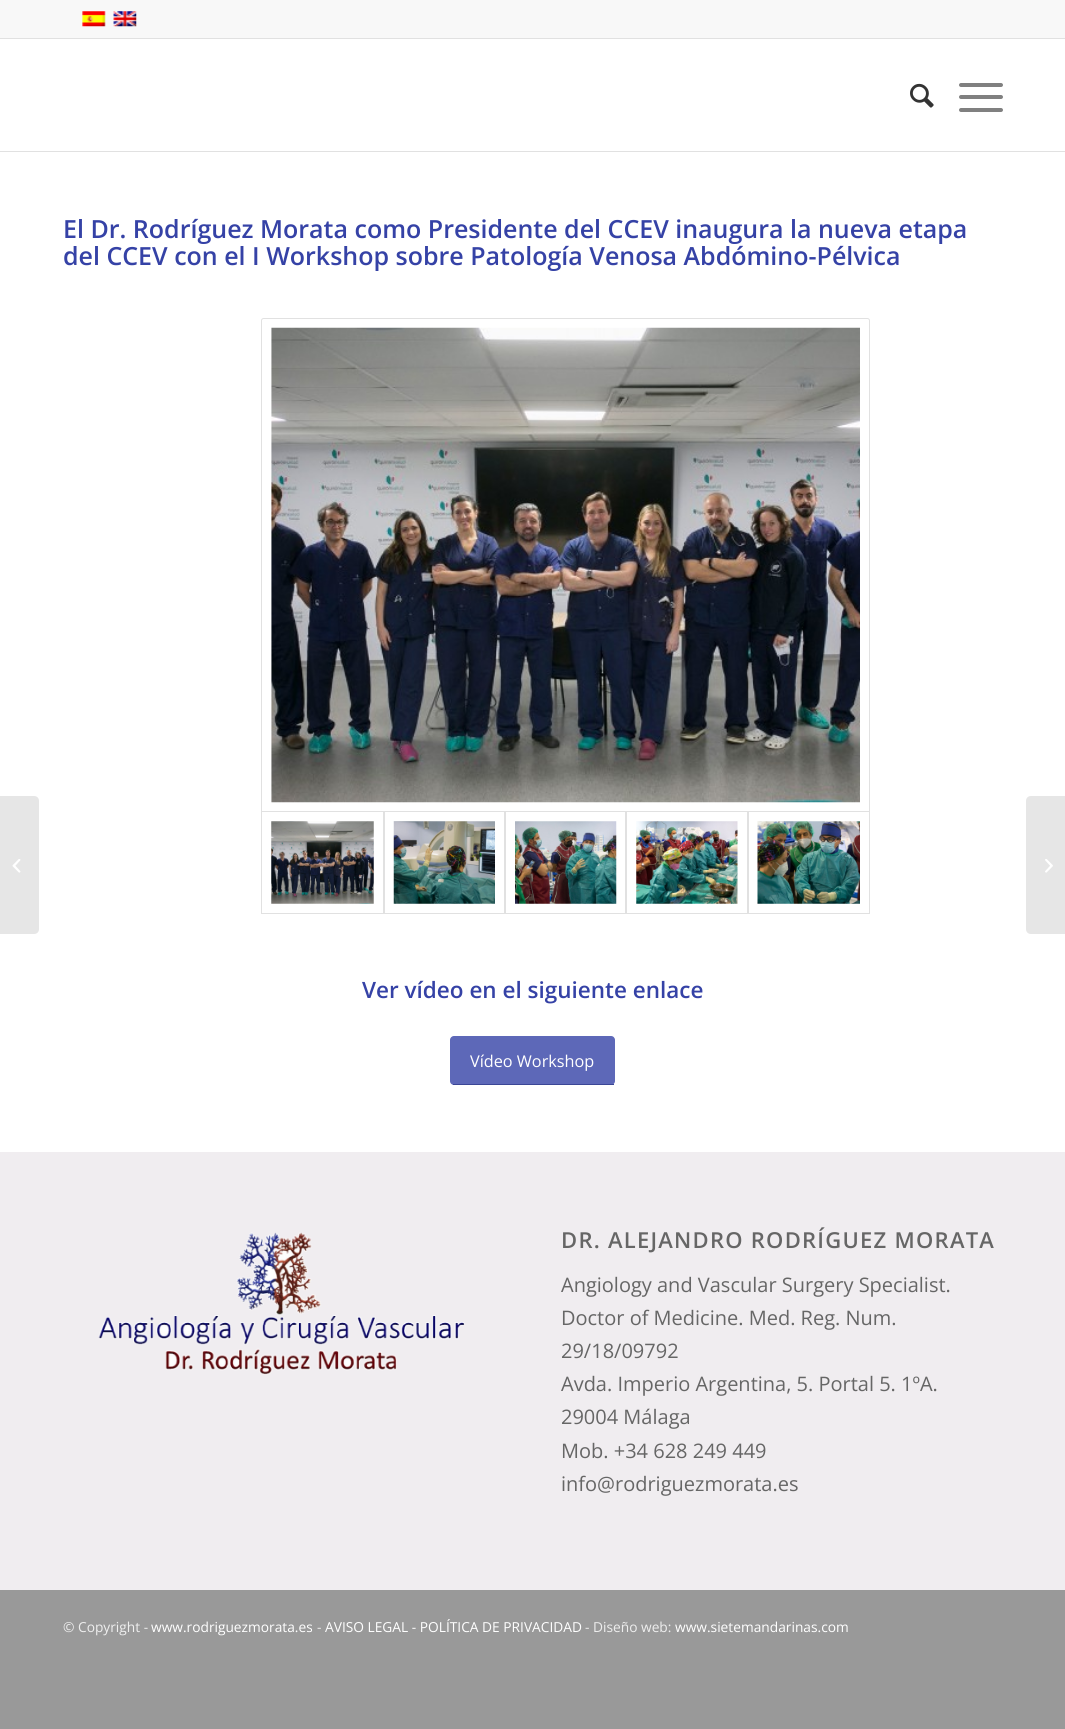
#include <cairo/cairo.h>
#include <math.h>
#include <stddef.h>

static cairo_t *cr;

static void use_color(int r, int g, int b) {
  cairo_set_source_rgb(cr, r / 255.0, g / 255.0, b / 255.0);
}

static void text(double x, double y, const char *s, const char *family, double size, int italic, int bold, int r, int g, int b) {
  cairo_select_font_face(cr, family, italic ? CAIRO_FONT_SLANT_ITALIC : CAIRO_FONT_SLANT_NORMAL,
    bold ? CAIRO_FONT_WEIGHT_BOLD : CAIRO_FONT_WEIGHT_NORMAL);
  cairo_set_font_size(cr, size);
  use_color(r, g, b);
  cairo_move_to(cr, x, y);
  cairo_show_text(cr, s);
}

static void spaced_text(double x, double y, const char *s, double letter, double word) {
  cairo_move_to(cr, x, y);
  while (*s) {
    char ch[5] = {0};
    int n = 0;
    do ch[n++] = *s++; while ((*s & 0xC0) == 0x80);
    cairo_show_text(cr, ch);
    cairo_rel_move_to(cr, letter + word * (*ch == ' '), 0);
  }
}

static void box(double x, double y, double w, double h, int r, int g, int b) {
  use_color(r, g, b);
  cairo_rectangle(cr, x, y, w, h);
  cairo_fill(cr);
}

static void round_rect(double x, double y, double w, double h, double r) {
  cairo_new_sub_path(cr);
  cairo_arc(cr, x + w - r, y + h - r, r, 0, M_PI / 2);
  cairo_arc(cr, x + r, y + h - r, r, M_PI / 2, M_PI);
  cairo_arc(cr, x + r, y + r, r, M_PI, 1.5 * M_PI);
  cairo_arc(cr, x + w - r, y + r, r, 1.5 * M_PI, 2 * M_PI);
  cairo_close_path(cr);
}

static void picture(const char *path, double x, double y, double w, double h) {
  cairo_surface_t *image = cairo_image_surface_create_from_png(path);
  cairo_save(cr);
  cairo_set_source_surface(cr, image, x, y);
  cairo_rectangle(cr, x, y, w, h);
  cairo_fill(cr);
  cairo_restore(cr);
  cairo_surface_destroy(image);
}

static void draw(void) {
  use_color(153, 153, 153);
  cairo_paint(cr);
  box(0, 39, 1065, 1113, 255, 255, 255);
  box(0, 0, 1065, 38, 248, 248, 248);
  box(0, 38, 1065, 1, 225, 225, 225);
  picture("img_01.png", 82, 11, 24, 16);
  picture("img_02.png", 113, 11, 24, 16);
  box(0, 151, 1065, 1, 225, 225, 225);
  picture("img_03.png", 910, 83, 24, 25);
  use_color(128, 128, 128);
  round_rect(959, 95, 44, 4, 2);
  cairo_fill(cr);
  round_rect(959, 83, 44, 4, 2);
  cairo_fill(cr);
  round_rect(959, 108, 44, 4, 2);
  cairo_fill(cr);
  use_color(230, 230, 230);
  cairo_new_path(cr);
  cairo_move_to(cr, 0, 796);
  cairo_line_to(cr, 34, 796);
  cairo_curve_to(cr, 37, 796, 39, 798, 39, 801);
  cairo_line_to(cr, 39, 929);
  cairo_curve_to(cr, 39, 932, 37, 934, 34, 934);
  cairo_line_to(cr, 0, 934);
  cairo_close_path(cr);
  cairo_fill(cr);
  picture("img_04.png", 12, 859, 9, 14);
  cairo_new_path(cr);
  cairo_move_to(cr, 263.5, 318.5);
  cairo_line_to(cr, 867.5, 318.5);
  cairo_curve_to(cr, 868.5, 318.5, 869.5, 319.5, 869.5, 320.5);
  cairo_line_to(cr, 869.5, 812.5);
  cairo_line_to(cr, 261.5, 812.5);
  cairo_line_to(cr, 261.5, 320.5);
  cairo_curve_to(cr, 261.5, 319.5, 262.5, 318.5, 263.5, 318.5);
  cairo_close_path(cr);
  use_color(225, 225, 225);
  cairo_set_line_width(cr, 1);
  cairo_stroke(cr);
  picture("img_05.png", 271, 327, 589, 476);
  box(262, 812, 121, 1, 255, 255, 255);
  cairo_rectangle(cr, 261.5, 811.5, 122, 102);
  use_color(225, 225, 225);
  cairo_stroke(cr);
  picture("img_06.png", 271, 821, 103, 83);
  box(385, 812, 119, 1, 255, 255, 255);
  cairo_rectangle(cr, 384.5, 811.5, 120, 102);
  use_color(225, 225, 225);
  cairo_stroke(cr);
  picture("img_07.png", 393, 821, 102, 83);
  box(506, 812, 119, 1, 255, 255, 255);
  cairo_rectangle(cr, 505.5, 811.5, 120, 102);
  use_color(225, 225, 225);
  cairo_stroke(cr);
  picture("img_08.png", 515, 821, 102, 83);
  box(627, 812, 120, 1, 255, 255, 255);
  cairo_rectangle(cr, 626.5, 811.5, 121, 102);
  use_color(225, 225, 225);
  cairo_stroke(cr);
  picture("img_09.png", 636, 821, 102, 83);
  box(749, 812, 120, 1, 255, 255, 255);
  cairo_rectangle(cr, 748.5, 811.5, 121, 102);
  use_color(225, 225, 225);
  cairo_stroke(cr);
  picture("img_10.png", 757, 821, 103, 83);
  use_color(93, 104, 184);
  round_rect(450, 1036, 165, 49, 4);
  cairo_fill(cr);
  box(453, 1084, 161, 1, 59, 70, 150);
  box(0, 1152, 1065, 438, 240, 237, 240);
  picture("img_11.png", 98, 1232, 367, 143);
  use_color(230, 230, 230);
  cairo_new_path(cr);
  cairo_move_to(cr, 1031, 796);
  cairo_line_to(cr, 1065, 796);
  cairo_line_to(cr, 1065, 934);
  cairo_line_to(cr, 1031, 934);
  cairo_curve_to(cr, 1028, 934, 1026, 932, 1026, 929);
  cairo_line_to(cr, 1026, 801);
  cairo_curve_to(cr, 1026, 798, 1028, 796, 1031, 796);
  cairo_close_path(cr);
  cairo_fill(cr);
  picture("img_12.png", 1045, 859, 8, 14);
  text(63, 238, "El Dr. Rodríguez Morata como Presidente del CCEV inaugura la nueva etapa", "Open Sans SemiBold", 25, 0, 0, 53, 66, 166);
  text(63, 265, "del CCEV con el I Workshop sobre Patología Venosa Abdómino-Pélvica", "Open Sans SemiBold", 25, 0, 0, 53, 66, 166);
  text(362, 998, "Ver vídeo en el siguiente enlace", "Open Sans SemiBold", 22.5, 0, 0, 53, 66, 166);
  text(470, 1067, "Vídeo Workshop", "Open Sans", 16.25, 0, 0, 255, 255, 255);
  cairo_select_font_face(cr, "Open Sans SemiBold", CAIRO_FONT_SLANT_NORMAL, CAIRO_FONT_WEIGHT_NORMAL);
  cairo_set_font_size(cr, 22);
  use_color(102, 102, 102);
  spaced_text(561, 1248, "DR. ALEJANDRO RODRÍGUEZ MORATA", 1.25, 0);
  text(561, 1292, "Angiology and Vascular Surgery Specialist.", "Open Sans", 20, 0, 0, 102, 102, 102);
  text(561, 1325, "Doctor of Medicine. Med. Reg. Num.", "Open Sans", 20, 0, 0, 102, 102, 102);
  text(561, 1358, "29/18/09792", "Open Sans", 20, 0, 0, 102, 102, 102);
  text(561, 1391, "Avda. Imperio Argentina, 5. Portal 5. 1ºA.", "Open Sans", 20, 0, 0, 102, 102, 102);
  text(561, 1424, "29004 Málaga", "Open Sans", 20, 0, 0, 102, 102, 102);
  text(561, 1458, "Mob. +34 628 249 449", "Open Sans", 20, 0, 0, 102, 102, 102);
  text(561, 1491, "info@rodriguezmorata.es", "Open Sans", 20, 0, 0, 102, 102, 102);
  text(63, 1632, "© Copyright -", "Open Sans", 13.75, 0, 0, 238, 238, 238);
  text(151, 1632, "www.rodriguezmorata.es", "Open Sans", 13.75, 0, 0, 255, 255, 255);
  text(317, 1632, "-", "Open Sans", 13.75, 0, 0, 238, 238, 238);
  text(325, 1632, "AVISO LEGAL - POLÍTICA DE PRIVACIDAD", "Open Sans", 13.75, 0, 0, 255, 255, 255);
  text(585, 1632, "- Diseño web:", "Open Sans", 13.75, 0, 0, 238, 238, 238);
  text(675, 1632, "www.sietemandarinas.com", "Open Sans", 13.75, 0, 0, 255, 255, 255);
}

int main(void) {
  cairo_surface_t *surface = cairo_image_surface_create(CAIRO_FORMAT_RGB24, 1065, 1729);
  cr = cairo_create(surface);
  cairo_font_options_t *options = cairo_font_options_create();
  cairo_font_options_set_hint_metrics(options, CAIRO_HINT_METRICS_OFF);
  cairo_font_options_set_hint_style(options, CAIRO_HINT_STYLE_NONE);
  cairo_set_font_options(cr, options);
  cairo_set_miter_limit(cr, 4);
  draw();
  cairo_surface_write_to_png(surface, "out.png");
  cairo_font_options_destroy(options);
  cairo_destroy(cr);
  cairo_surface_destroy(surface);
  return 0;
}
